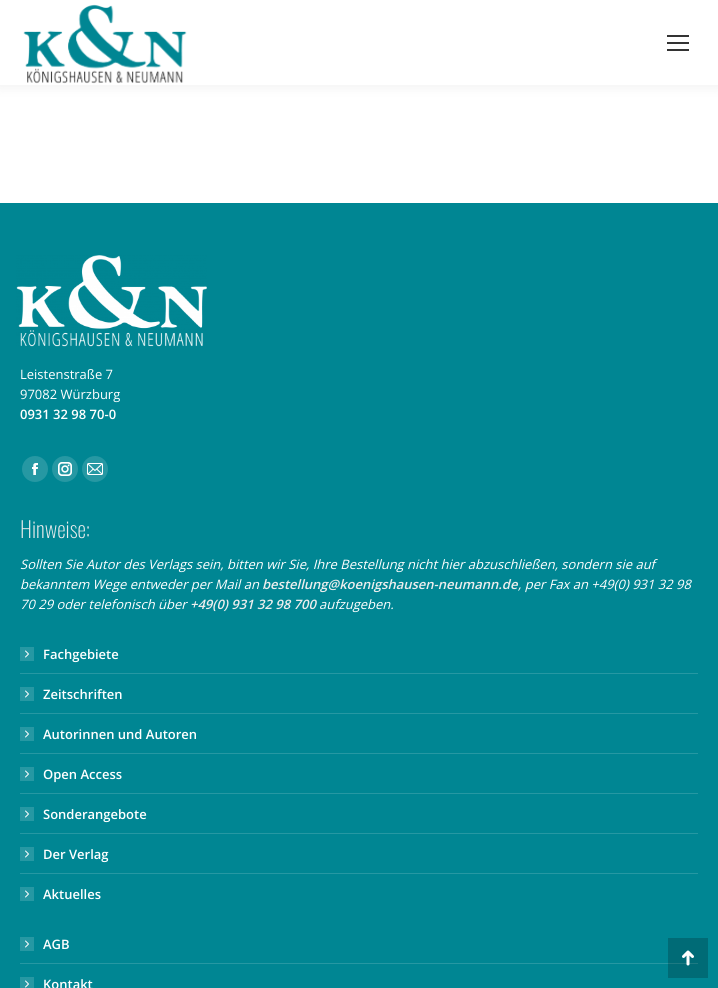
#include <cairo/cairo.h>
#include <math.h>
#include <stddef.h>

static cairo_t *cr;

static void use_color(int r, int g, int b) {
  cairo_set_source_rgb(cr, r / 255.0, g / 255.0, b / 255.0);
}

static void text(double x, double y, const char *s, const char *family, double size, int italic, int bold, int r, int g, int b) {
  cairo_select_font_face(cr, family, italic ? CAIRO_FONT_SLANT_ITALIC : CAIRO_FONT_SLANT_NORMAL,
    bold ? CAIRO_FONT_WEIGHT_BOLD : CAIRO_FONT_WEIGHT_NORMAL);
  cairo_set_font_size(cr, size);
  use_color(r, g, b);
  cairo_move_to(cr, x, y);
  cairo_show_text(cr, s);
}

static void box(double x, double y, double w, double h, int r, int g, int b) {
  use_color(r, g, b);
  cairo_rectangle(cr, x, y, w, h);
  cairo_fill(cr);
}

static void round_rect(double x, double y, double w, double h, double r) {
  cairo_new_sub_path(cr);
  cairo_arc(cr, x + w - r, y + h - r, r, 0, M_PI / 2);
  cairo_arc(cr, x + r, y + h - r, r, M_PI / 2, M_PI);
  cairo_arc(cr, x + r, y + r, r, M_PI, 1.5 * M_PI);
  cairo_arc(cr, x + w - r, y + r, r, 1.5 * M_PI, 2 * M_PI);
  cairo_close_path(cr);
}

static void shadow(double x, double y, double w, double h, double r, double blur, double alpha) {
  cairo_push_group_with_content(cr, CAIRO_CONTENT_ALPHA);
  cairo_set_operator(cr, CAIRO_OPERATOR_SOURCE);
  for (int i = 15; i >= -15 && fmin(w, h) + blur * i / 3 > 0; i -= 2) {
    double e = blur * i / 6;
    cairo_set_source_rgba(cr, 0, 0, 0, alpha * erfc((i - 1) / 8.5) / 2);
    round_rect(x - e, y - e, w + 2 * e, h + 2 * e, fmax(0, fmin(r + e + blur * .6, fmin(w, h) / 2 + e)));
    cairo_fill(cr);
  }
  cairo_pattern_t *soft = cairo_pop_group(cr);
  cairo_mask(cr, soft);
  cairo_pattern_destroy(soft);
}

static void picture(const char *path, double x, double y, double w, double h) {
  cairo_surface_t *image = cairo_image_surface_create_from_png(path);
  cairo_save(cr);
  cairo_set_source_surface(cr, image, x, y);
  cairo_rectangle(cr, x, y, w, h);
  cairo_fill(cr);
  cairo_restore(cr);
  cairo_surface_destroy(image);
}

static void draw(void) {
  use_color(255, 255, 255);
  cairo_paint(cr);
  use_color(0, 0, 0);
  shadow(-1, -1, 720, 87, 0, 7.5, 0.07);
  box(0, 0, 718, 85, 255, 255, 255);
  picture("img_01.png", 23, 4, 164, 80);
  box(667, 35, 22, 2, 51, 51, 51);
  box(667, 42, 22, 2, 51, 51, 51);
  box(667, 49, 22, 2, 51, 51, 51);
  box(0, 203, 718, 785, 0, 134, 147);
  box(668, 938, 40, 40, 0, 107, 118);
  picture("img_02.png", 16, 255, 191, 92);
  use_color(38, 152, 163);
  cairo_arc(cr, 35, 469, 13, 0, 2 * M_PI);
  cairo_fill(cr);
  picture("img_03.png", 32, 463, 6, 12);
  cairo_arc(cr, 65, 469, 13, 0, 2 * M_PI);
  cairo_fill(cr);
  picture("img_04.png", 58, 462, 14, 14);
  cairo_arc(cr, 95, 469, 13, 0, 2 * M_PI);
  cairo_fill(cr);
  picture("img_05.png", 87, 463, 16, 12);
  box(20, 647, 14, 14, 38, 152, 163);
  picture("img_06.png", 25, 650, 4, 8);
  box(20, 673, 678, 1, 38, 152, 163);
  box(20, 687, 14, 14, 38, 152, 163);
  picture("img_06.png", 25, 690, 4, 8);
  box(20, 713, 678, 1, 38, 152, 163);
  box(20, 727, 14, 14, 38, 152, 163);
  picture("img_06.png", 25, 730, 4, 8);
  box(20, 753, 678, 1, 38, 152, 163);
  box(20, 767, 14, 14, 38, 152, 163);
  picture("img_06.png", 25, 770, 4, 8);
  box(20, 793, 678, 1, 38, 152, 163);
  box(20, 807, 14, 14, 38, 152, 163);
  picture("img_06.png", 25, 810, 4, 8);
  box(20, 833, 678, 1, 38, 152, 163);
  box(20, 847, 14, 14, 38, 152, 163);
  picture("img_06.png", 25, 850, 4, 8);
  box(20, 873, 678, 1, 38, 152, 163);
  box(20, 887, 14, 14, 38, 152, 163);
  picture("img_06.png", 25, 890, 4, 8);
  box(20, 937, 14, 14, 38, 152, 163);
  picture("img_06.png", 25, 940, 4, 8);
  box(20, 963, 648, 1, 38, 152, 163);
  box(668, 963, 30, 1, 30, 122, 130);
  box(20, 977, 14, 11, 38, 152, 163);
  picture("img_06.png", 25, 980, 4, 8);
  picture("img_07.png", 682, 950, 12, 16);
  text(20, 379, "Leistenstraße 7", "Open Sans", 13, 0, 0, 255, 255, 255);
  text(20, 399, "97082 Würzburg", "Open Sans", 13, 0, 0, 255, 255, 255);
  text(20, 419, "0931 32 98 70-0", "Open Sans SemiBold", 13, 0, 0, 255, 255, 255);
  text(20, 538, "Hinweise:", "Oswald ExtraLight", 22, 0, 0, 238, 238, 238);
  text(20, 569, "Sollten Sie Autor des Verlags sein, bitten wir Sie, Ihre Bestellung nicht hier abzuschließen, sondern sie auf", "Open Sans", 13, 1, 0, 255, 255, 255);
  text(20, 589, "bekanntem Wege entweder per Mail an", "Open Sans", 13, 1, 0, 255, 255, 255);
  text(262, 589, "bestellung@koenigshausen-neumann.de", "Open Sans SemiBold", 13, 1, 0, 238, 238, 238);
  text(518, 589, ", per Fax an +49(0) 931 32 98", "Open Sans", 13, 1, 0, 255, 255, 255);
  text(20, 609, "70 29 oder telefonisch über", "Open Sans", 13, 1, 0, 255, 255, 255);
  text(190, 609, "+49(0) 931 32 98 700", "Open Sans SemiBold", 13, 1, 0, 238, 238, 238);
  text(319, 609, "aufzugeben.", "Open Sans", 13, 1, 0, 255, 255, 255);
  text(43, 659, "Fachgebiete", "Open Sans SemiBold", 13, 0, 0, 255, 255, 255);
  text(43, 699, "Zeitschriften", "Open Sans SemiBold", 13, 0, 0, 255, 255, 255);
  text(43, 739, "Autorinnen und Autoren", "Open Sans SemiBold", 13, 0, 0, 255, 255, 255);
  text(43, 779, "Open Access", "Open Sans SemiBold", 13, 0, 0, 255, 255, 255);
  text(43, 819, "Sonderangebote", "Open Sans SemiBold", 13, 0, 0, 255, 255, 255);
  text(43, 859, "Der Verlag", "Open Sans SemiBold", 13, 0, 0, 255, 255, 255);
  text(43, 899, "Aktuelles", "Open Sans SemiBold", 13, 0, 0, 255, 255, 255);
  text(43, 949, "AGB", "Open Sans SemiBold", 13, 0, 0, 255, 255, 255);
  text(43, 989, "Kontakt", "Open Sans SemiBold", 13, 0, 0, 255, 255, 255);
}

int main(void) {
  cairo_surface_t *surface = cairo_image_surface_create(CAIRO_FORMAT_RGB24, 718, 988);
  cr = cairo_create(surface);
  cairo_font_options_t *options = cairo_font_options_create();
  cairo_font_options_set_hint_metrics(options, CAIRO_HINT_METRICS_OFF);
  cairo_font_options_set_hint_style(options, CAIRO_HINT_STYLE_NONE);
  cairo_set_font_options(cr, options);
  cairo_set_miter_limit(cr, 4);
  draw();
  cairo_surface_write_to_png(surface, "out.png");
  cairo_font_options_destroy(options);
  cairo_destroy(cr);
  cairo_surface_destroy(surface);
  return 0;
}
